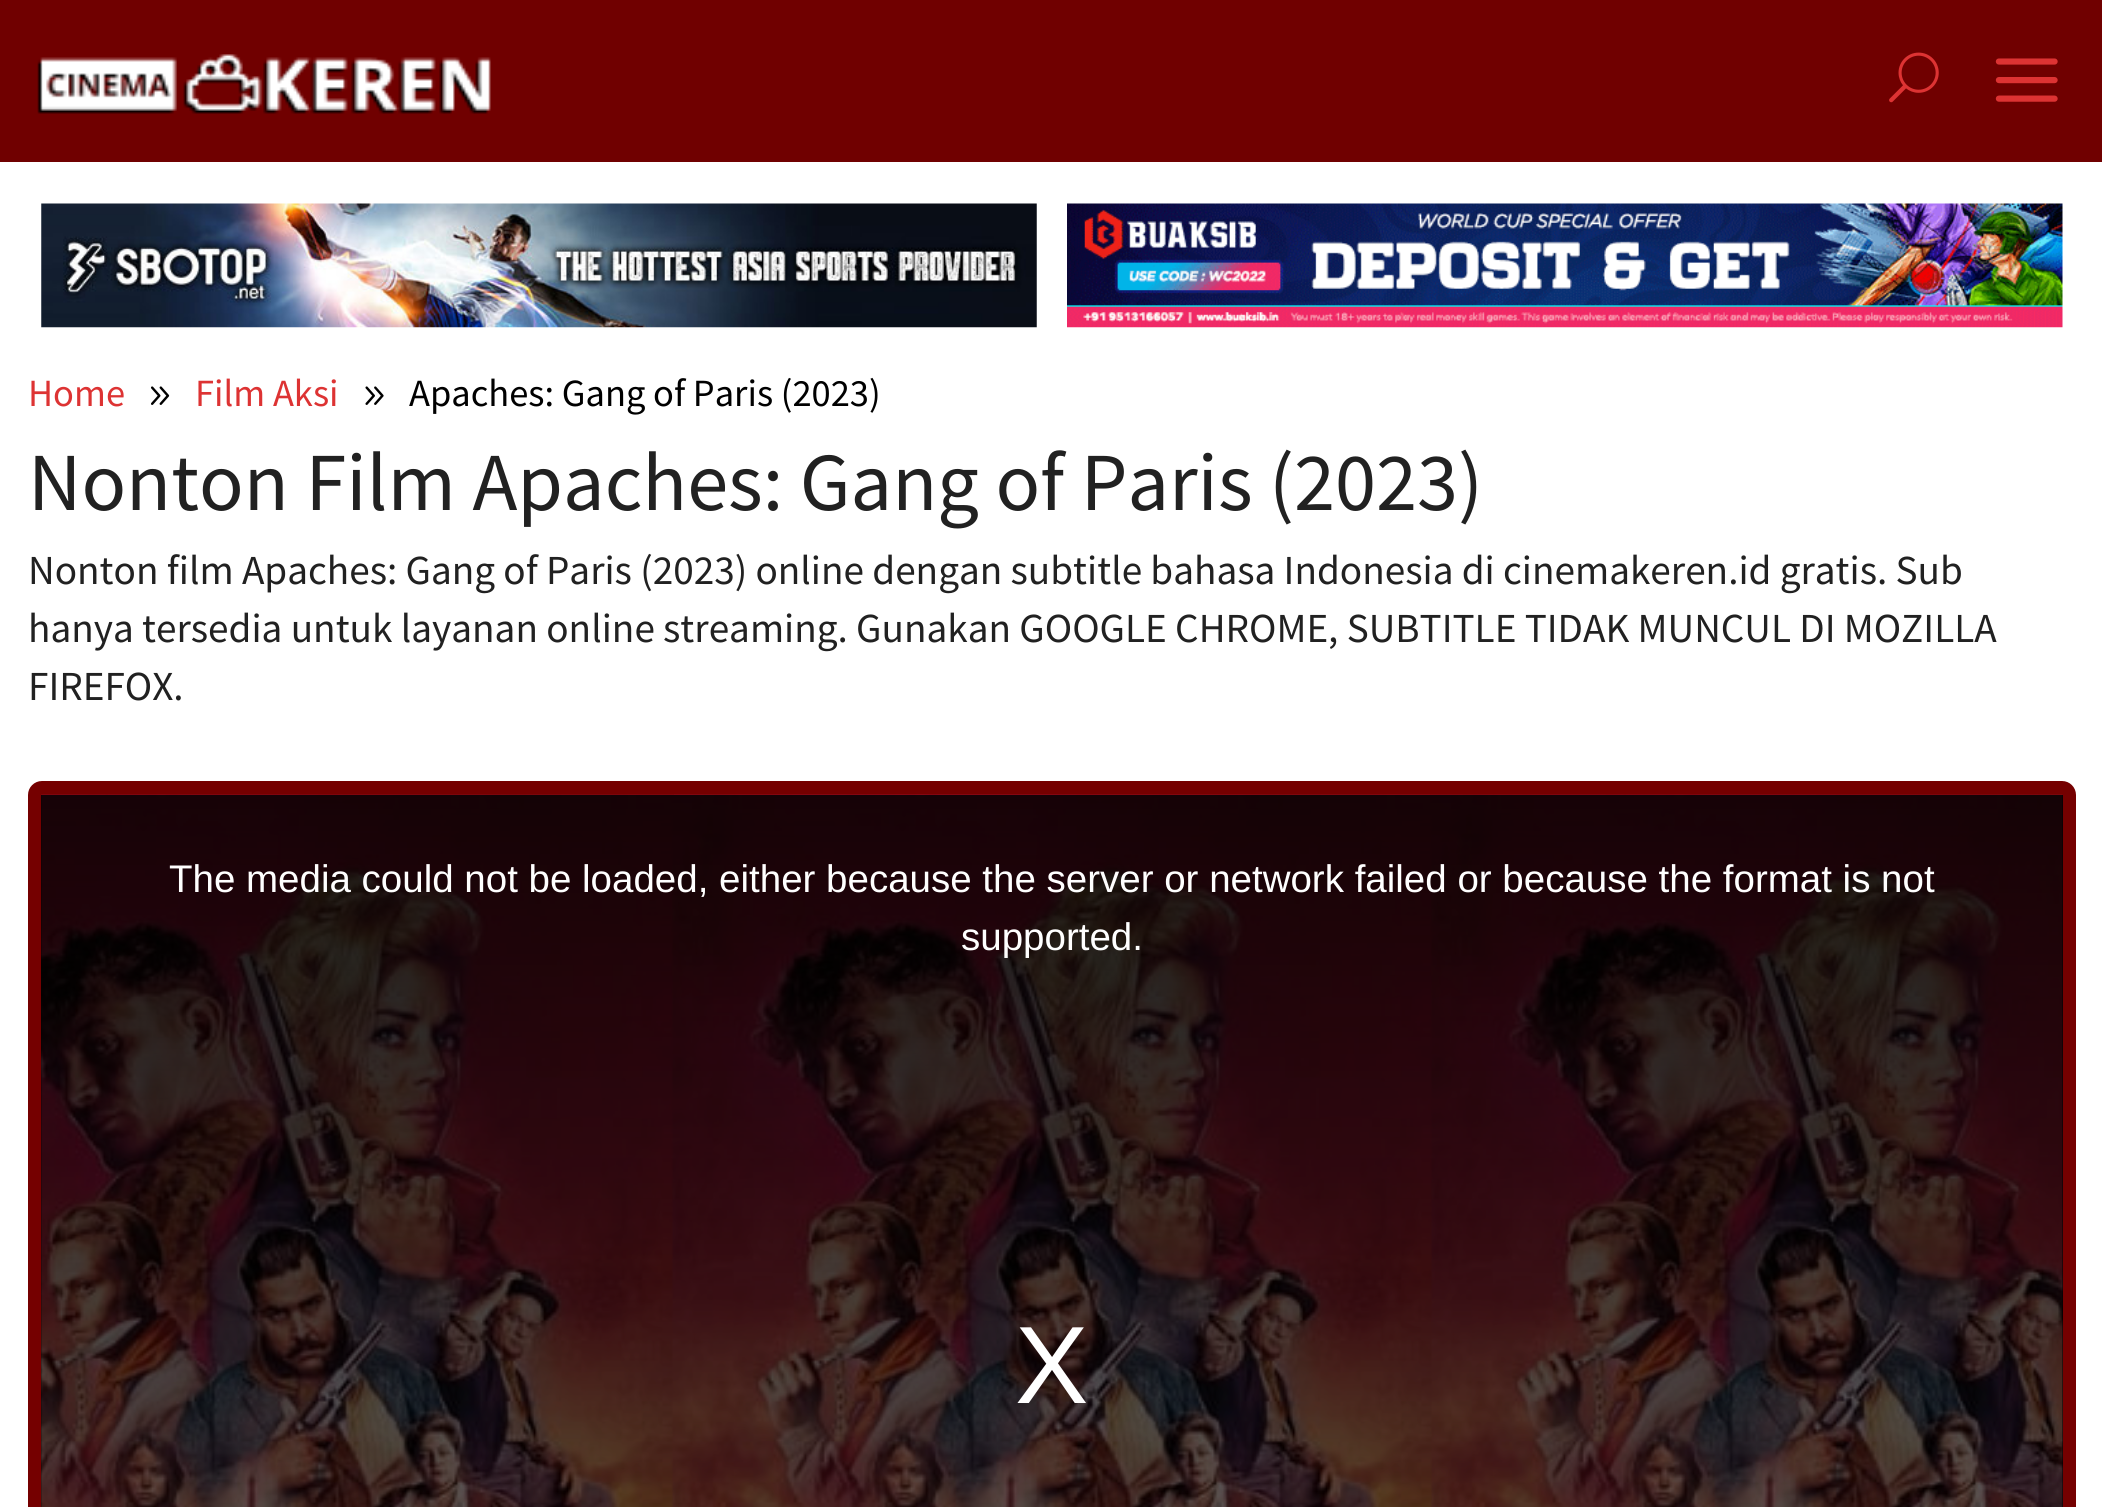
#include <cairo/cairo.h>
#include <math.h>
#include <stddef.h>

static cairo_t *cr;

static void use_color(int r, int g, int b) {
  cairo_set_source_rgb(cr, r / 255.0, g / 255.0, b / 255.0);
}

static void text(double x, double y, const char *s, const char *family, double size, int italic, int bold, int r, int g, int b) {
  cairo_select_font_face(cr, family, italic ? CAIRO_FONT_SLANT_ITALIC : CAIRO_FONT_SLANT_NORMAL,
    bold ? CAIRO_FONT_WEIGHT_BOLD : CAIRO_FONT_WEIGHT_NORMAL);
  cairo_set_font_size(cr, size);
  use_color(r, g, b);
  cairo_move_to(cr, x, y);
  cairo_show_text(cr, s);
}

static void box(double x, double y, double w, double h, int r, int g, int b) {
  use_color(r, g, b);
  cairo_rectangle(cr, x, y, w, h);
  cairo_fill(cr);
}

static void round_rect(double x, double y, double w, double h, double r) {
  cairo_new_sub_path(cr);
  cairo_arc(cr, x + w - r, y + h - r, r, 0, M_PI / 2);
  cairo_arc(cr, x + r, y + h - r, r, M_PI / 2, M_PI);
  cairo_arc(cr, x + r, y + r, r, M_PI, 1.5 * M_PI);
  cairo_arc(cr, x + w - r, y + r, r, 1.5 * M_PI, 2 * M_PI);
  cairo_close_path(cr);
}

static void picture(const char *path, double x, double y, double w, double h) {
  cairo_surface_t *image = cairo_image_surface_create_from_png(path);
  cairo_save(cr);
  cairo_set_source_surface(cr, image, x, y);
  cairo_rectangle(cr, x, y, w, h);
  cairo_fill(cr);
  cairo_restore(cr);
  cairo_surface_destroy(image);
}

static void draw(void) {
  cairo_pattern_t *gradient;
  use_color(112, 0, 0);
  cairo_paint(cr);
  picture("img_01.png", 37, 54, 454, 60);
  picture("img_02.png", 1889, 52, 50, 51);
  picture("img_03.png", 1995, 58, 63, 44);
  box(0, 162, 2102, 1345, 255, 255, 255);
  picture("img_04.png", 41, 203, 996, 125);
  picture("img_05.png", 1067, 203, 996, 125);
  picture("img_06.png", 151, 386, 19, 19);
  picture("img_07.png", 365, 386, 19, 19);
  use_color(117, 0, 0);
  round_rect(28, 781, 2048, 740, 14);
  cairo_fill(cr);
  box(41, 795, 2022, 712, 0, 0, 0);
  picture("img_09.png", 674, 794, 756, 1);
  picture("img_08.png", 41, 794, 2022, 713);
  gradient = cairo_pattern_create_linear(1052, 795, 1052, 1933);
  cairo_pattern_add_color_stop_rgba(gradient, 0, 0, 0, 0, 0.8);
  cairo_pattern_add_color_stop_rgba(gradient, 1, 0, 0, 0, 0);
  cairo_set_source(cr, gradient);
  cairo_pattern_destroy(gradient);
  cairo_rectangle(cr, 41, 795, 2022, 712);
  cairo_fill(cr);
  text(28, 406, "Home", "Source Sans Pro", 38.5, 0, 0, 221, 51, 51);
  text(195, 406, "Film Aksi", "Source Sans Pro", 38.5, 0, 0, 221, 51, 51);
  text(409, 406, "Apaches: Gang of Paris (2023)", "Source Sans Pro", 38.5, 0, 0, 0, 0, 0);
  text(28, 510, "Nonton Film Apaches: Gang of Paris (2023)", "Source Sans Pro", 82.5, 0, 0, 33, 33, 33);
  text(28, 584, "Nonton film Apaches: Gang of Paris (2023) online dengan subtitle bahasa Indonesia di cinemakeren.id gratis. Sub", "Source Sans Pro", 41.25, 0, 0, 33, 33, 33);
  text(28, 642, "hanya tersedia untuk layanan online streaming. Gunakan GOOGLE CHROME, SUBTITLE TIDAK MUNCUL DI MOZILLA", "Source Sans Pro", 41.25, 0, 0, 33, 33, 33);
  text(28, 700, "FIREFOX.", "Source Sans Pro", 41.25, 0, 0, 33, 33, 33);
  text(169, 892, "The media could not be loaded, either because the server or network failed or because the format is not", "Liberation Sans", 38.5, 0, 0, 255, 255, 255);
  text(961, 950, "supported.", "Liberation Sans", 38.5, 0, 0, 255, 255, 255);
  text(1015, 1403, "X", "Liberation Sans", 110, 0, 0, 255, 255, 255);
}

int main(void) {
  cairo_surface_t *surface = cairo_image_surface_create(CAIRO_FORMAT_RGB24, 2102, 1507);
  cr = cairo_create(surface);
  cairo_font_options_t *options = cairo_font_options_create();
  cairo_font_options_set_hint_metrics(options, CAIRO_HINT_METRICS_OFF);
  cairo_font_options_set_hint_style(options, CAIRO_HINT_STYLE_NONE);
  cairo_set_font_options(cr, options);
  cairo_set_miter_limit(cr, 4);
  draw();
  cairo_surface_write_to_png(surface, "out.png");
  cairo_font_options_destroy(options);
  cairo_destroy(cr);
  cairo_surface_destroy(surface);
  return 0;
}
